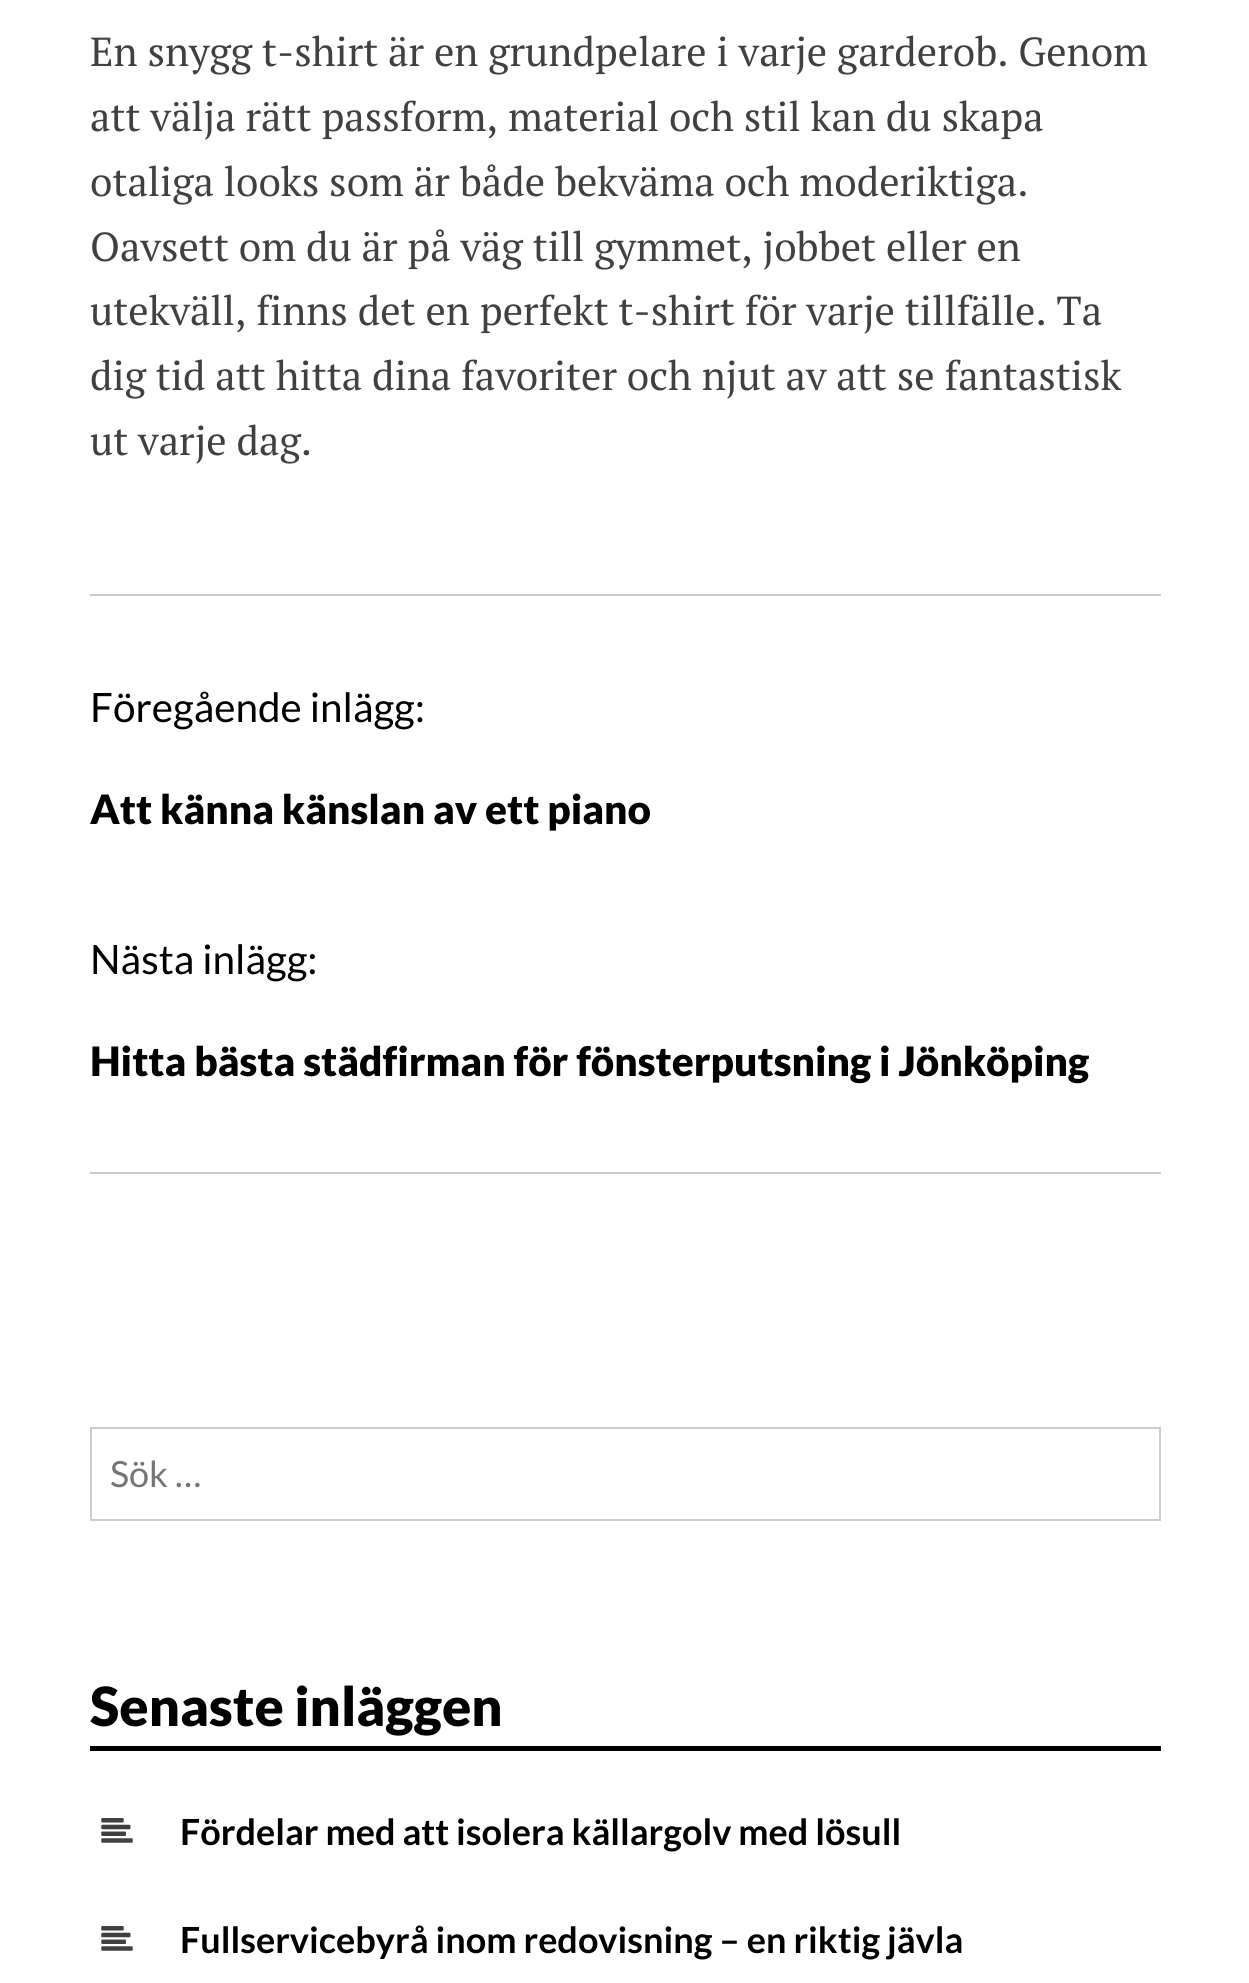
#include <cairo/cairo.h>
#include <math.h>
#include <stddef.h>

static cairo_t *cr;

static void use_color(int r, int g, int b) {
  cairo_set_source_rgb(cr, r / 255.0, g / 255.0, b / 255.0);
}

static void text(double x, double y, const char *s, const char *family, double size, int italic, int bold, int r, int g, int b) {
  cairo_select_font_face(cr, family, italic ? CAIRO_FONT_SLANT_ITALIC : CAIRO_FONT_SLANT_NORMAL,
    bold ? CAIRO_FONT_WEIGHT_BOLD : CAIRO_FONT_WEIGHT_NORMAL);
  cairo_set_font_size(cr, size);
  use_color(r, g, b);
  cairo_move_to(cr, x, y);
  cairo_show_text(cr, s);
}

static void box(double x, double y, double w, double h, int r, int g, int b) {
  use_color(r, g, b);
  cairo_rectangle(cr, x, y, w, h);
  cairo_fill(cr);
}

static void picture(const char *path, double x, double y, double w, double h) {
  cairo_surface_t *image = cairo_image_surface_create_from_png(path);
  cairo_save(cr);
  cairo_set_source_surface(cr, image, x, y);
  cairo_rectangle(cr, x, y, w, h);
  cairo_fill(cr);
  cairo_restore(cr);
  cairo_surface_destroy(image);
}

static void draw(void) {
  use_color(255, 255, 255);
  cairo_paint(cr);
  box(90, 594, 1071, 2, 204, 204, 204);
  box(90, 1172, 1071, 2, 204, 204, 204);
  cairo_rectangle(cr, 91, 1428, 1069, 92);
  cairo_stroke(cr);
  box(90, 1746, 1071, 5, 0, 0, 0);
  picture("img_01.png", 101, 1818, 32, 25);
  picture("img_01.png", 101, 1926, 32, 25);
  text(90, 66, "En snygg t-shirt är en grundpelare i varje garderob. Genom", "PT Serif", 40.5, 0, 0, 64, 64, 64);
  text(90, 131, "att välja rätt passform, material och stil kan du skapa", "PT Serif", 40.5, 0, 0, 64, 64, 64);
  text(90, 196, "otaliga looks som är både bekväma och moderiktiga.", "PT Serif", 40.5, 0, 0, 64, 64, 64);
  text(90, 261, "Oavsett om du är på väg till gymmet, jobbet eller en", "PT Serif", 40.5, 0, 0, 64, 64, 64);
  text(90, 325, "utekväll, finns det en perfekt t-shirt för varje tillfälle. Ta", "PT Serif", 40.5, 0, 0, 64, 64, 64);
  text(90, 390, "dig tid att hitta dina favoriter och njut av att se fantastisk", "PT Serif", 40.5, 0, 0, 64, 64, 64);
  text(90, 455, "ut varje dag.", "PT Serif", 40.5, 0, 0, 64, 64, 64);
  text(90, 722, "Föregående inlägg:", "Lato", 40.5, 0, 0, 0, 0, 0);
  text(90, 824, "Att känna känslan av ett piano", "Lato Black", 40.5, 0, 0, 0, 0, 0);
  text(90, 974, "Nästa inlägg:", "Lato", 40.5, 0, 0, 0, 0, 0);
  text(90, 1076, "Hitta bästa städfirman för fönsterputsning i Jönköping", "Lato Black", 40.5, 0, 0, 0, 0, 0);
  text(110, 1487, "Sök …", "Lato", 36, 0, 0, 117, 117, 117);
  text(90, 1726, "Senaste inläggen", "Lato Black", 54, 0, 0, 0, 0, 0);
  text(180, 1845, "Fördelar med att isolera källargolv med lösull", "Lato", 36, 0, 1, 0, 0, 0);
  text(180, 1953, "Fullservicebyrå inom redovisning – en riktig jävla", "Lato", 36, 0, 1, 0, 0, 0);
}

int main(void) {
  cairo_surface_t *surface = cairo_image_surface_create(CAIRO_FORMAT_RGB24, 1249, 1983);
  cr = cairo_create(surface);
  cairo_font_options_t *options = cairo_font_options_create();
  cairo_font_options_set_hint_metrics(options, CAIRO_HINT_METRICS_OFF);
  cairo_font_options_set_hint_style(options, CAIRO_HINT_STYLE_NONE);
  cairo_set_font_options(cr, options);
  cairo_set_miter_limit(cr, 4);
  draw();
  cairo_surface_write_to_png(surface, "out.png");
  cairo_font_options_destroy(options);
  cairo_destroy(cr);
  cairo_surface_destroy(surface);
  return 0;
}
